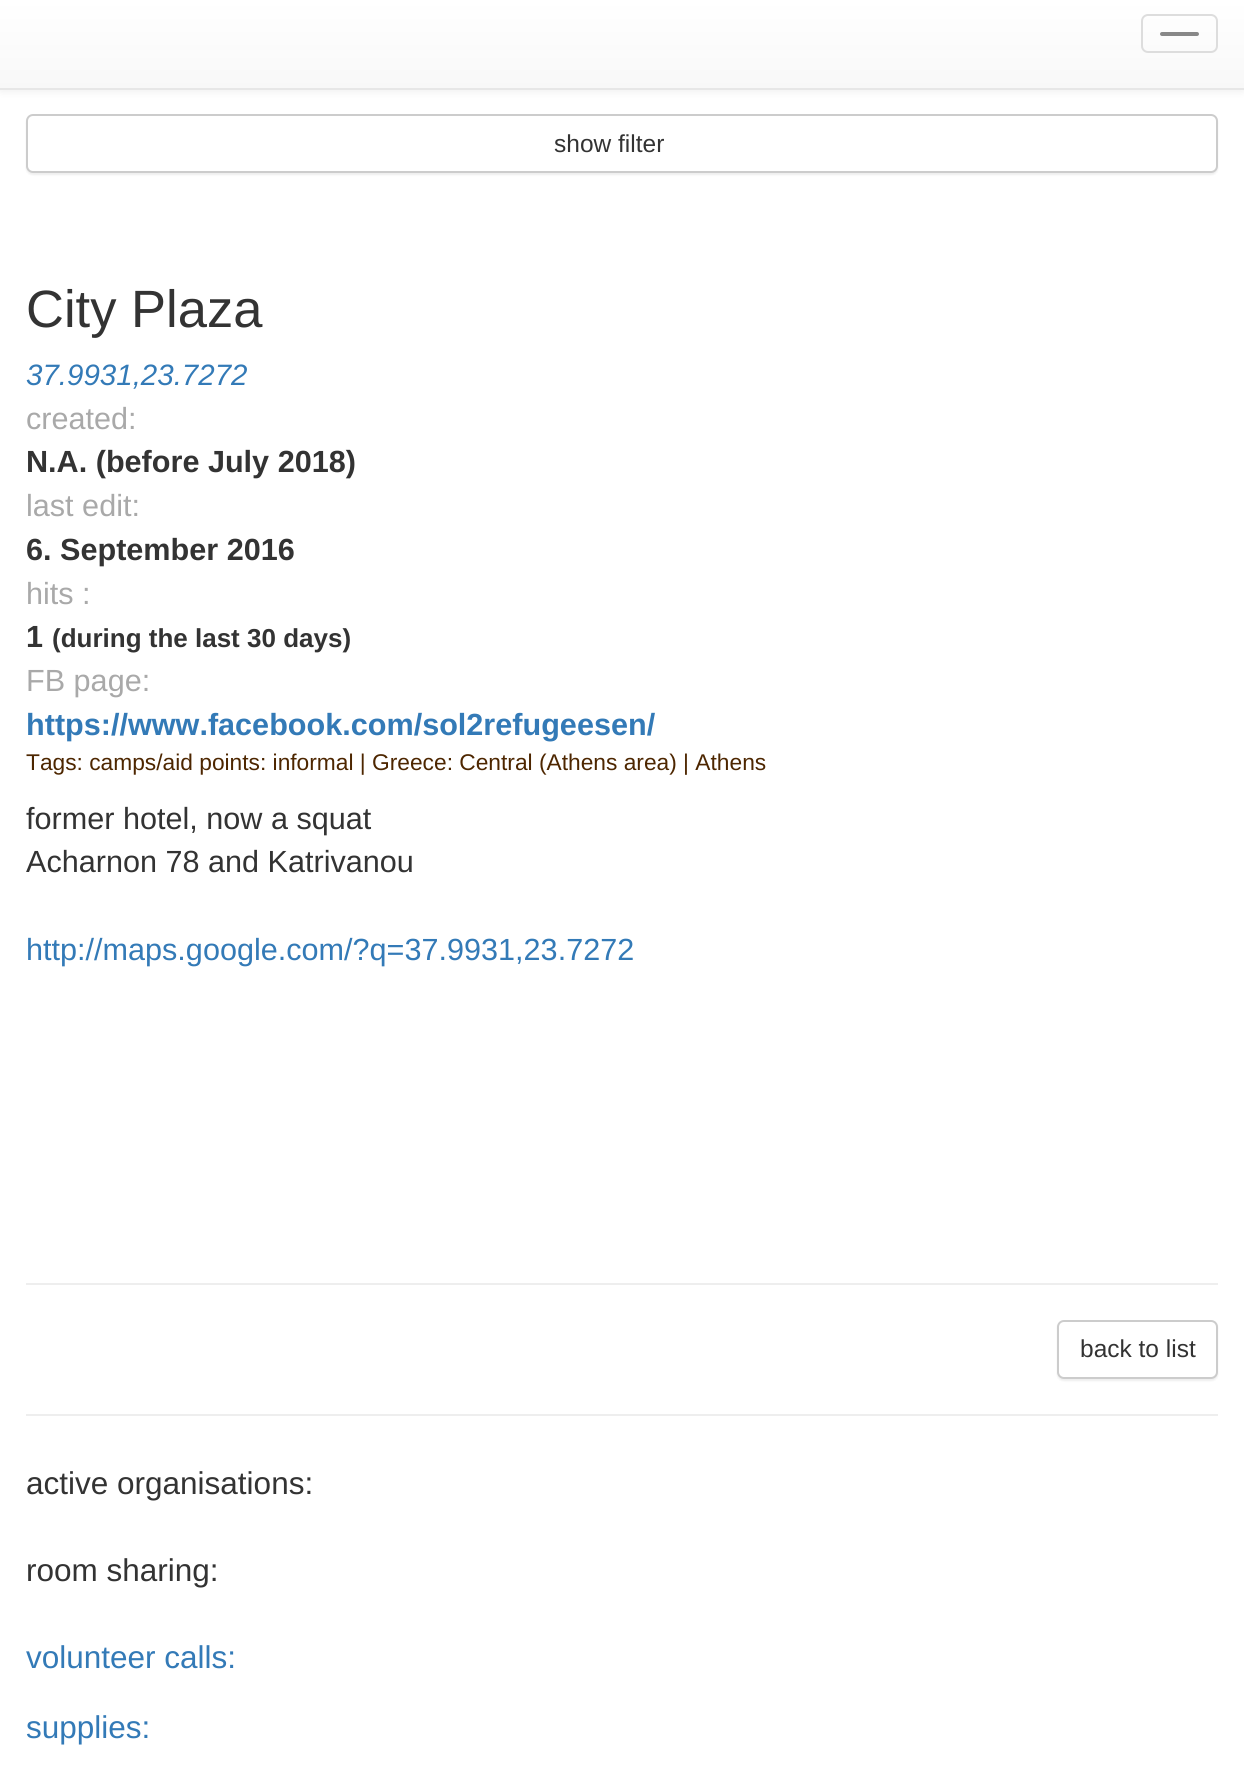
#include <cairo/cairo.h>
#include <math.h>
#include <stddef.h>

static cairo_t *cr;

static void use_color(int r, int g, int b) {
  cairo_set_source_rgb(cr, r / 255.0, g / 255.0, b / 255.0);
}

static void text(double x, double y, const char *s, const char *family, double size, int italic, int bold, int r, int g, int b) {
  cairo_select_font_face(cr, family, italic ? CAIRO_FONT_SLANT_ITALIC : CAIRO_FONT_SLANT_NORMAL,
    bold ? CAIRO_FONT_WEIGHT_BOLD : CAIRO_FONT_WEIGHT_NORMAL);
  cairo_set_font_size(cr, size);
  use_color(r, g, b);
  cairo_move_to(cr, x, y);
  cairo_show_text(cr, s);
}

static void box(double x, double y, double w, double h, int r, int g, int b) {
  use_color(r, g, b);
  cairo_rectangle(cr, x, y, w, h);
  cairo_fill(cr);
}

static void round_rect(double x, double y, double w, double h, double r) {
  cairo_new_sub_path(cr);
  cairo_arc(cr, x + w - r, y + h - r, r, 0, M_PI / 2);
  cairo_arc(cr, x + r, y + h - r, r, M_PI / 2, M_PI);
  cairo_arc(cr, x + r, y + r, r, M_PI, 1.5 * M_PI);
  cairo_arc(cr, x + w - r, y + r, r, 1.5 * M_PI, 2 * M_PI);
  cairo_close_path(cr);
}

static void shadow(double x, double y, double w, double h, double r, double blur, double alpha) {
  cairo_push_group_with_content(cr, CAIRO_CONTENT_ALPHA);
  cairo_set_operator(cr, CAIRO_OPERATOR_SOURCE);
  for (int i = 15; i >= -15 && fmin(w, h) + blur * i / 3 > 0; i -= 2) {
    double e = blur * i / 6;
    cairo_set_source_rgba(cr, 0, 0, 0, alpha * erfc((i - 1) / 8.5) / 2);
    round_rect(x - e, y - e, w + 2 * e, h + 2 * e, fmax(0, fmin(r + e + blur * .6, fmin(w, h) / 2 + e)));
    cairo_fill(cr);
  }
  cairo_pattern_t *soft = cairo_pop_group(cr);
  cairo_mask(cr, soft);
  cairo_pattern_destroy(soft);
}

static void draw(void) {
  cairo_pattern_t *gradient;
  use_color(255, 255, 255);
  cairo_paint(cr);
  use_color(0, 0, 0);
  shadow(0, 2, 1244, 89, 0, 4.5, 0.07);
  gradient = cairo_pattern_create_linear(622, 0, 622, 88);
  cairo_pattern_add_color_stop_rgba(gradient, 0, 1, 1, 1, 1);
  cairo_pattern_add_color_stop_rgba(gradient, 1, 0.973, 0.973, 0.973, 1);
  cairo_set_source(cr, gradient);
  cairo_pattern_destroy(gradient);
  cairo_rectangle(cr, 0, 0, 1244, 88);
  cairo_fill(cr);
  box(0, 88, 1244, 2, 231, 231, 231);
  round_rect(1142, 15, 75, 37, 6);
  use_color(221, 221, 221);
  cairo_stroke(cr);
  use_color(136, 136, 136);
  round_rect(1160, 32, 39, 4, 2);
  cairo_fill(cr);
  use_color(0, 0, 0);
  shadow(26, 116, 1192, 59, 7, 1, 0.07);
  use_color(255, 255, 255);
  round_rect(27, 115, 1190, 57, 6);
  cairo_fill_preserve(cr);
  use_color(204, 204, 204);
  cairo_stroke(cr);
  box(26, 1283, 1192, 2, 238, 238, 238);
  use_color(0, 0, 0);
  shadow(1057, 1321, 161, 60, 7, 1, 0.07);
  use_color(255, 255, 255);
  round_rect(1058, 1321, 159, 57, 6);
  cairo_fill_preserve(cr);
  use_color(204, 204, 204);
  cairo_stroke(cr);
  box(26, 1414, 1192, 2, 238, 238, 238);
  text(554, 152, "show filter", "Liberation Sans", 24.5, 0, 0, 51, 51, 51);
  text(26, 327, "City Plaza", "Liberation Sans", 52.5, 0, 0, 51, 51, 51);
  text(26, 385, "37.9931,23.7272", "Liberation Sans", 29.5, 1, 0, 51, 122, 183);
  text(26, 429, "created:", "Liberation Sans", 30.6, 0, 0, 169, 169, 169);
  text(26, 472, "N.A. (before July 2018)", "Liberation Sans", 30.6, 0, 1, 51, 51, 51);
  text(26, 516, "last edit:", "Liberation Sans", 30.6, 0, 0, 169, 169, 169);
  text(26, 560, "6. September 2016", "Liberation Sans", 30.6, 0, 1, 51, 51, 51);
  text(26, 604, "hits :", "Liberation Sans", 30.6, 0, 0, 169, 169, 169);
  text(26, 647, "1", "Liberation Sans", 30.6, 0, 1, 51, 51, 51);
  text(52, 647, "(during the last 30 days)", "Liberation Sans", 26, 0, 1, 51, 51, 51);
  text(26, 691, "FB page:", "Liberation Sans", 30.6, 0, 0, 169, 169, 169);
  text(26, 735, "https://www.facebook.com/sol2refugeesen/", "Liberation Sans", 30.6, 0, 1, 51, 122, 183);
  text(26, 770, "Tags: camps/aid points: informal | Greece: Central (Athens area) | Athens", "Liberation Sans", 22.75, 0, 0, 77, 38, 0);
  text(26, 829, "former hotel, now a squat", "Liberation Sans", 30.6, 0, 0, 51, 51, 51);
  text(26, 872, "Acharnon 78 and Katrivanou", "Liberation Sans", 30.6, 0, 0, 51, 51, 51);
  text(26, 960, "http://maps.google.com/?q=37.9931,23.7272", "Liberation Sans", 30.6, 0, 0, 51, 122, 183);
  text(1080, 1357, "back to list", "Liberation Sans", 24.5, 0, 0, 51, 51, 51);
  text(26, 1494, "active organisations:", "Liberation Sans", 31.5, 0, 0, 51, 51, 51);
  text(26, 1581, "room sharing:", "Liberation Sans", 31.5, 0, 0, 51, 51, 51);
  text(26, 1668, "volunteer calls:", "Liberation Sans", 31.5, 0, 0, 51, 122, 183);
  text(26, 1738, "supplies:", "Liberation Sans", 31.5, 0, 0, 51, 122, 183);
}

int main(void) {
  cairo_surface_t *surface = cairo_image_surface_create(CAIRO_FORMAT_RGB24, 1244, 1775);
  cr = cairo_create(surface);
  cairo_font_options_t *options = cairo_font_options_create();
  cairo_font_options_set_hint_metrics(options, CAIRO_HINT_METRICS_OFF);
  cairo_font_options_set_hint_style(options, CAIRO_HINT_STYLE_NONE);
  cairo_set_font_options(cr, options);
  cairo_set_miter_limit(cr, 4);
  draw();
  cairo_surface_write_to_png(surface, "out.png");
  cairo_font_options_destroy(options);
  cairo_destroy(cr);
  cairo_surface_destroy(surface);
  return 0;
}
